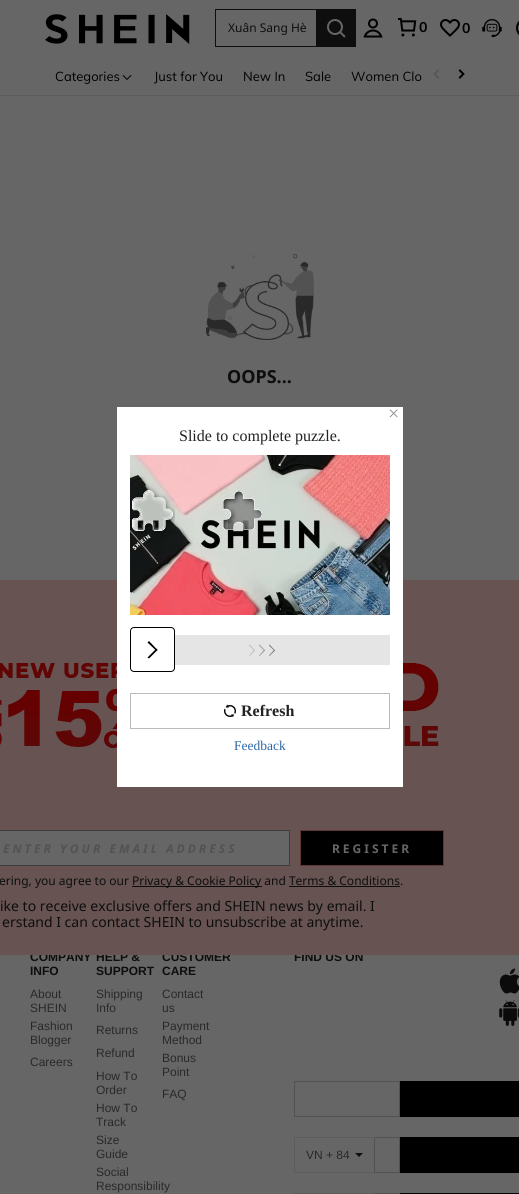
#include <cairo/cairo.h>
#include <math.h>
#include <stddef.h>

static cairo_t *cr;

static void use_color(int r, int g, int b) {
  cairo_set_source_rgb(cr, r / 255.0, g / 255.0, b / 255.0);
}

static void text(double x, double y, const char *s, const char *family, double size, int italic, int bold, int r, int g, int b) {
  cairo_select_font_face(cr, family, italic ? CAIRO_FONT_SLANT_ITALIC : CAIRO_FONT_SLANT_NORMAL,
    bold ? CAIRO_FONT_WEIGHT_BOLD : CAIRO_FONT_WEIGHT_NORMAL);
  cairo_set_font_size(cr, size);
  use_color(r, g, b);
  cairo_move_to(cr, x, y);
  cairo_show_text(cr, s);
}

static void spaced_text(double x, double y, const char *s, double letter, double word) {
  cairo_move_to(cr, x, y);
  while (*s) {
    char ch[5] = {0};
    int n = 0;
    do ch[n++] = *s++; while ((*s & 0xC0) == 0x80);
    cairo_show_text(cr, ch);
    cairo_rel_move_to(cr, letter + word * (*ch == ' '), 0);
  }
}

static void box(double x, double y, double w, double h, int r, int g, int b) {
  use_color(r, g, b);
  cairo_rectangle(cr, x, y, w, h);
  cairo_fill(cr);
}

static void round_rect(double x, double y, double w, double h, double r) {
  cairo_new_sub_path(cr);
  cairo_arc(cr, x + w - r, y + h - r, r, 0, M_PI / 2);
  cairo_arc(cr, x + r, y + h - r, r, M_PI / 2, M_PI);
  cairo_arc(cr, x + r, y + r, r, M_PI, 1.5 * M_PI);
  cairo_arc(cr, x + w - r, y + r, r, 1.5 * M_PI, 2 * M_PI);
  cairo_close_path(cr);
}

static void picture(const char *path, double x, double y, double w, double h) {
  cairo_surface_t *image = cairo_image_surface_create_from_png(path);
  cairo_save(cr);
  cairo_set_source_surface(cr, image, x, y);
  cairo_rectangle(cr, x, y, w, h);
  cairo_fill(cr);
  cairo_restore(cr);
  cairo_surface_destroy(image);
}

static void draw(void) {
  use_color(102, 102, 102);
  cairo_paint(cr);
  picture("img_01.png", 45, 14, 145, 30);
  box(215, 9, 101, 1, 14, 14, 14);
  box(215, 46, 101, 1, 14, 14, 14);
  box(215, 9, 1, 38, 14, 14, 14);
  box(316, 9, 40, 38, 14, 14, 14);
  picture("img_02.png", 327, 19, 19, 19);
  picture("img_03.png", 363, 18, 20, 20);
  picture("img_04.png", 398, 18, 19, 19);
  picture("img_05.png", 440, 19, 20, 18);
  picture("img_06.png", 482, 19, 20, 19);
  picture("img_07.png", 516, 21, 3, 14);
  box(0, 95, 519, 1, 92, 92, 92);
  picture("img_08.png", 122, 75, 10, 5);
  picture("img_09.png", 433, 69, 7, 10);
  picture("img_10.png", 458, 69, 7, 10);
  picture("img_11.png", 206, 254, 108, 86);
  picture("img_12.png", 499, 968, 20, 26);
  picture("img_13.png", 499, 1000, 20, 26);
  cairo_rectangle(cr, 294.5, 1081.5, 105, 35);
  use_color(82, 82, 82);
  cairo_set_line_width(cr, 1);
  cairo_stroke(cr);
  box(400, 1081, 119, 36, 0, 0, 0);
  box(294, 1137, 80, 1, 92, 92, 92);
  box(294, 1172, 80, 1, 92, 92, 92);
  box(294, 1137, 1, 36, 92, 92, 92);
  use_color(14, 14, 14);
  cairo_new_path(cr);
  cairo_move_to(cr, 355, 1153);
  cairo_line_to(cr, 363, 1153);
  cairo_line_to(cr, 359, 1157);
  cairo_close_path(cr);
  cairo_fill(cr);
  cairo_rectangle(cr, 374.5, 1137.5, 25, 35);
  use_color(82, 82, 82);
  cairo_stroke(cr);
  box(400, 1137, 119, 36, 0, 0, 0);
  box(294, 1193, 80, 1, 92, 92, 92);
  cairo_rectangle(cr, 374.5, 1193.5, 25, 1);
  use_color(82, 82, 82);
  cairo_stroke(cr);
  box(400, 1193, 119, 1, 0, 0, 0);
  text(228, 32, "Xuân Sang Hè", "Noto Sans", 12, 0, 0, 14, 14, 14);
  text(419, 32, "0", "Muli", 14, 0, 1, 0, 0, 0);
  text(462, 33, "0", "Muli", 14, 0, 1, 0, 0, 0);
  text(55, 81, "Categories", "Muli", 13, 0, 0, 0, 0, 0);
  text(154, 81, "Just for You", "Muli", 13, 0, 0, 0, 0, 0);
  text(243, 81, "New In", "Muli", 13, 0, 0, 0, 0, 0);
  text(305, 81, "Sale", "Muli", 13, 0, 0, 0, 0, 0);
  text(351, 81, "Women Clo", "Muli", 13, 0, 0, 0, 0, 0);
  text(227, 383, "OOPS...", "Noto Sans", 18, 0, 1, 14, 14, 14);
  text(30, 961, "COMPANY", "Liberation Sans", 12, 0, 1, 14, 14, 14);
  text(30, 975, "INFO", "Liberation Sans", 12, 0, 1, 14, 14, 14);
  text(30, 998, "About", "Liberation Sans", 12, 0, 0, 41, 41, 41);
  text(30, 1012, "SHEIN", "Liberation Sans", 12, 0, 0, 41, 41, 41);
  text(30, 1030, "Fashion", "Liberation Sans", 12, 0, 0, 41, 41, 41);
  text(30, 1044, "Blogger", "Liberation Sans", 12, 0, 0, 41, 41, 41);
  text(30, 1066, "Careers", "Liberation Sans", 12, 0, 0, 41, 41, 41);
  text(96, 961, "HELP &", "Liberation Sans", 12, 0, 1, 14, 14, 14);
  text(96, 975, "SUPPORT", "Liberation Sans", 12, 0, 1, 14, 14, 14);
  text(96, 998, "Shipping", "Liberation Sans", 12, 0, 0, 41, 41, 41);
  text(96, 1012, "Info", "Liberation Sans", 12, 0, 0, 41, 41, 41);
  text(96, 1034, "Returns", "Liberation Sans", 12, 0, 0, 41, 41, 41);
  text(96, 1057, "Refund", "Liberation Sans", 12, 0, 0, 41, 41, 41);
  text(96, 1080, "How To", "Liberation Sans", 12, 0, 0, 41, 41, 41);
  text(96, 1094, "Order", "Liberation Sans", 12, 0, 0, 41, 41, 41);
  text(96, 1112, "How To", "Liberation Sans", 12, 0, 0, 41, 41, 41);
  text(96, 1126, "Track", "Liberation Sans", 12, 0, 0, 41, 41, 41);
  text(96, 1144, "Size", "Liberation Sans", 12, 0, 0, 41, 41, 41);
  text(96, 1158, "Guide", "Liberation Sans", 12, 0, 0, 41, 41, 41);
  text(96, 1176, "Social", "Liberation Sans", 12, 0, 0, 41, 41, 41);
  text(96, 1190, "Responsibility", "Liberation Sans", 12, 0, 0, 41, 41, 41);
  text(162, 961, "CUSTOMER", "Liberation Sans", 12, 0, 1, 14, 14, 14);
  text(162, 975, "CARE", "Liberation Sans", 12, 0, 1, 14, 14, 14);
  text(162, 998, "Contact", "Liberation Sans", 12, 0, 0, 41, 41, 41);
  text(162, 1012, "us", "Liberation Sans", 12, 0, 0, 41, 41, 41);
  text(162, 1030, "Payment", "Liberation Sans", 12, 0, 0, 41, 41, 41);
  text(162, 1044, "Method", "Liberation Sans", 12, 0, 0, 41, 41, 41);
  text(162, 1062, "Bonus", "Liberation Sans", 12, 0, 0, 41, 41, 41);
  text(162, 1076, "Point", "Liberation Sans", 12, 0, 0, 41, 41, 41);
  text(162, 1098, "FAQ", "Liberation Sans", 12, 0, 0, 41, 41, 41);
  text(294, 961, "FIND US ON", "Liberation Sans", 12, 0, 1, 14, 14, 14);
  text(306, 1159, "VN + 84", "Liberation Sans", 12, 0, 0, 41, 41, 41);
  box(0, 580, 519, 375, 102, 83, 82);
  picture("img_16.png", 0, 663, 439, 85);
  box(117, 407, 286, 380, 255, 255, 255);
  round_rect(130.5, 627.5, 44, 44, 3.5);
  use_color(0, 0, 0);
  cairo_stroke(cr);
  cairo_new_path(cr);
  cairo_move_to(cr, 149, 641);
  cairo_line_to(cr, 157.5, 650);
  cairo_line_to(cr, 156.5, 651);
  cairo_line_to(cr, 147.5, 642.5);
  cairo_close_path(cr);
  cairo_fill(cr);
  cairo_new_path(cr);
  cairo_move_to(cr, 156.5, 648.5);
  cairo_line_to(cr, 157.5, 650);
  cairo_line_to(cr, 149, 658.5);
  cairo_line_to(cr, 147.5, 657.5);
  cairo_close_path(cr);
  cairo_fill(cr);
  box(175, 635, 215, 30, 229, 229, 229);
  use_color(118, 118, 118);
  cairo_new_path(cr);
  cairo_move_to(cr, 269.5, 644.5);
  cairo_line_to(cr, 275, 650.5);
  cairo_line_to(cr, 274.5, 651);
  cairo_line_to(cr, 269, 645.5);
  cairo_close_path(cr);
  cairo_fill(cr);
  cairo_new_path(cr);
  cairo_move_to(cr, 274.5, 649.5);
  cairo_line_to(cr, 275, 650.5);
  cairo_line_to(cr, 269.5, 656);
  cairo_line_to(cr, 269, 655.5);
  cairo_close_path(cr);
  cairo_fill(cr);
  use_color(149, 149, 149);
  cairo_new_path(cr);
  cairo_move_to(cr, 259.5, 644.5);
  cairo_line_to(cr, 265, 650.5);
  cairo_line_to(cr, 264.5, 651);
  cairo_line_to(cr, 259, 645.5);
  cairo_close_path(cr);
  cairo_fill(cr);
  cairo_new_path(cr);
  cairo_move_to(cr, 264.5, 649.5);
  cairo_line_to(cr, 265, 650.5);
  cairo_line_to(cr, 259.5, 656);
  cairo_line_to(cr, 259, 655.5);
  cairo_close_path(cr);
  cairo_fill(cr);
  use_color(187, 187, 187);
  cairo_new_path(cr);
  cairo_move_to(cr, 249.5, 644.5);
  cairo_line_to(cr, 255, 650.5);
  cairo_line_to(cr, 254.5, 651);
  cairo_line_to(cr, 249, 645.5);
  cairo_close_path(cr);
  cairo_fill(cr);
  cairo_new_path(cr);
  cairo_move_to(cr, 254.5, 649.5);
  cairo_line_to(cr, 255, 650.5);
  cairo_line_to(cr, 249.5, 656);
  cairo_line_to(cr, 249, 655.5);
  cairo_close_path(cr);
  cairo_fill(cr);
  text(388, 420, "×", "Liberation Serif", 20, 0, 0, 149, 149, 149);
  picture("img_14.png", 130, 455, 260, 160);
  cairo_rectangle(cr, 130.5, 693.5, 259, 35);
  use_color(187, 187, 187);
  cairo_stroke(cr);
  picture("img_15.png", 224, 704, 12, 13);
  text(179, 441, "Slide to complete puzzle.", "Liberation Serif", 16, 0, 0, 34, 34, 34);
  text(234, 750, "Feedback", "Liberation Serif", 13.5, 0, 0, 45, 104, 168);
  text(241, 716, "Refresh", "Liberation Serif", 16, 0, 1, 34, 34, 34);
  use_color(102, 102, 102);
  cairo_rectangle(cr, -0.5, 830.5, 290, 35);
  cairo_fill_preserve(cr);
  use_color(61, 61, 61);
  cairo_stroke(cr);
  cairo_select_font_face(cr, "Noto Sans", CAIRO_FONT_SLANT_ITALIC, CAIRO_FONT_WEIGHT_BOLD);
  cairo_set_font_size(cr, 12);
  use_color(82, 82, 82);
  spaced_text(3, 853, "ENTER YOUR EMAIL ADDRESS", 3, 0);
  use_color(0, 0, 0);
  cairo_rectangle(cr, 300.5, 830.5, 143, 35);
  cairo_fill_preserve(cr);
  use_color(96, 54, 48);
  cairo_stroke(cr);
  cairo_select_font_face(cr, "Noto Sans", CAIRO_FONT_SLANT_NORMAL, CAIRO_FONT_WEIGHT_BOLD);
  use_color(102, 102, 102);
  spaced_text(332, 853, "REGISTER", 3, 0);
  text(-1, 885, "ering, you agree to our", "Noto Sans", 12, 0, 0, 14, 14, 14);
  box(132, 886, 130, 1, 14, 14, 14);
  text(132, 885, "Privacy & Cookie Policy and Terms & Conditions.", "Noto Sans", 12, 0, 0, 14, 14, 14);
  box(289, 886, 111, 1, 14, 14, 14);
  text(0, 911, "ike to receive exclusive offers and SHEIN news by email. I", "Noto Sans", 14, 0, 0, 14, 14, 14);
  text(2, 927, "erstand I can contact SHEIN to unsubscribe at anytime.", "Noto Sans", 14, 0, 0, 14, 14, 14);
}

int main(void) {
  cairo_surface_t *surface = cairo_image_surface_create(CAIRO_FORMAT_RGB24, 519, 1194);
  cr = cairo_create(surface);
  cairo_font_options_t *options = cairo_font_options_create();
  cairo_font_options_set_hint_metrics(options, CAIRO_HINT_METRICS_OFF);
  cairo_font_options_set_hint_style(options, CAIRO_HINT_STYLE_NONE);
  cairo_set_font_options(cr, options);
  cairo_set_miter_limit(cr, 4);
  draw();
  cairo_surface_write_to_png(surface, "out.png");
  cairo_font_options_destroy(options);
  cairo_destroy(cr);
  cairo_surface_destroy(surface);
  return 0;
}
